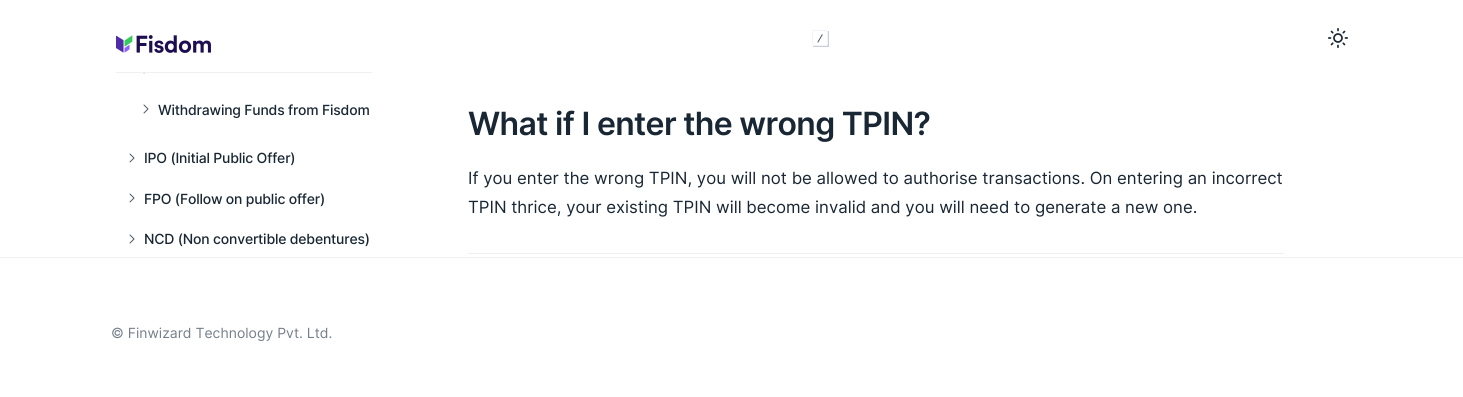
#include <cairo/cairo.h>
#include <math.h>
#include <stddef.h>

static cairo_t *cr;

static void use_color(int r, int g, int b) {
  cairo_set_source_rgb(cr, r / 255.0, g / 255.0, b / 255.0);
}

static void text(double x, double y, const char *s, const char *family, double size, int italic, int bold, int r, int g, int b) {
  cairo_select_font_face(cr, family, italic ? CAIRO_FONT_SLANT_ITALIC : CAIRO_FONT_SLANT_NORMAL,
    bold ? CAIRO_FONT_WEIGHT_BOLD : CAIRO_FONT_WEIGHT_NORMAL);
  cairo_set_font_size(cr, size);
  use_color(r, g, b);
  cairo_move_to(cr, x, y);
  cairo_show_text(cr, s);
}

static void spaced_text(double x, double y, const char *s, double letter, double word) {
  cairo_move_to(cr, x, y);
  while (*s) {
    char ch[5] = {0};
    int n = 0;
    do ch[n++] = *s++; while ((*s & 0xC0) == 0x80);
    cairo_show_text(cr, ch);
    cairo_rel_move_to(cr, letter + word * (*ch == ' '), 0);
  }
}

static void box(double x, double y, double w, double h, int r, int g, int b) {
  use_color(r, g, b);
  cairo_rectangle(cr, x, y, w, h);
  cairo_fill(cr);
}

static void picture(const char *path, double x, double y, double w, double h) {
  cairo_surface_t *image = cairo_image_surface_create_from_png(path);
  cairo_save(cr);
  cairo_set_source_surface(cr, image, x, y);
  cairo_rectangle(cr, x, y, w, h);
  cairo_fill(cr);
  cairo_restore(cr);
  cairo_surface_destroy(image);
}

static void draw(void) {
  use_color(255, 255, 255);
  cairo_paint(cr);
  cairo_new_path(cr);
  cairo_move_to(cr, 144, 73);
  cairo_line_to(cr, 148, 69);
  cairo_line_to(cr, 144, 65);
  cairo_move_to(cr, 144, 113);
  cairo_line_to(cr, 148, 109);
  cairo_line_to(cr, 144, 105);
  use_color(76, 90, 103);
  cairo_set_line_width(cr, 1);
  cairo_set_line_cap(cr, CAIRO_LINE_CAP_ROUND);
  cairo_set_line_join(cr, CAIRO_LINE_JOIN_ROUND);
  cairo_stroke(cr);
  box(143, 64, 6, 8, 255, 255, 255);
  box(116, 72, 256, 1, 238, 240, 242);
  picture("img_01.png", 116, 35, 95, 18);
  picture("img_02.png", 812, 30, 17, 17);
  picture("img_03.png", 1328, 28, 20, 20);
  cairo_new_path(cr);
  cairo_move_to(cr, 130, 162);
  cairo_line_to(cr, 134, 158);
  cairo_line_to(cr, 130, 154);
  cairo_move_to(cr, 130, 202);
  cairo_line_to(cr, 134, 198);
  cairo_line_to(cr, 130, 194);
  use_color(76, 90, 103);
  cairo_stroke(cr);
  cairo_new_path(cr);
  cairo_move_to(cr, 130, 243);
  cairo_line_to(cr, 134, 239);
  cairo_line_to(cr, 130, 235);
  cairo_stroke(cr);
  box(468, 253, 816, 1, 238, 240, 242);
  box(0, 257, 1463, 1, 238, 240, 242);
  cairo_select_font_face(cr, "Inter Medium", CAIRO_FONT_SLANT_NORMAL, CAIRO_FONT_WEIGHT_NORMAL);
  cairo_set_font_size(cr, 14);
  use_color(25, 39, 52);
  spaced_text(158, 115, "Withdrawing Funds from Fisdom", -0.2, 0);
  spaced_text(144, 163, "IPO (Initial Public Offer)", -0.2, 0);
  spaced_text(144, 204, "FPO (Follow on public offer)", -0.2, 0);
  spaced_text(144, 244, "NCD (Non convertible debentures)", -0.2, 0);
  cairo_select_font_face(cr, "Inter SemiBold", CAIRO_FONT_SLANT_NORMAL, CAIRO_FONT_WEIGHT_NORMAL);
  cairo_set_font_size(cr, 32);
  spaced_text(468, 135, "What if I enter the wrong TPIN?", -0.65, 0);
  text(468, 184, "If you enter the wrong TPIN, you will not be allowed to authorise transactions. On entering an incorrect", "Inter", 16.8, 0, 0, 25, 39, 52);
  text(468, 213, "TPIN thrice, your existing TPIN will become invalid and you will need to generate a new one.", "Inter", 16.8, 0, 0, 25, 39, 52);
  text(111, 338, "© Finwizard Technology Pvt. Ltd.", "Inter", 14, 0, 0, 116, 128, 139);
}

int main(void) {
  cairo_surface_t *surface = cairo_image_surface_create(CAIRO_FORMAT_RGB24, 1463, 397);
  cr = cairo_create(surface);
  cairo_font_options_t *options = cairo_font_options_create();
  cairo_font_options_set_hint_metrics(options, CAIRO_HINT_METRICS_OFF);
  cairo_font_options_set_hint_style(options, CAIRO_HINT_STYLE_NONE);
  cairo_set_font_options(cr, options);
  cairo_set_miter_limit(cr, 4);
  draw();
  cairo_surface_write_to_png(surface, "out.png");
  cairo_font_options_destroy(options);
  cairo_destroy(cr);
  cairo_surface_destroy(surface);
  return 0;
}
